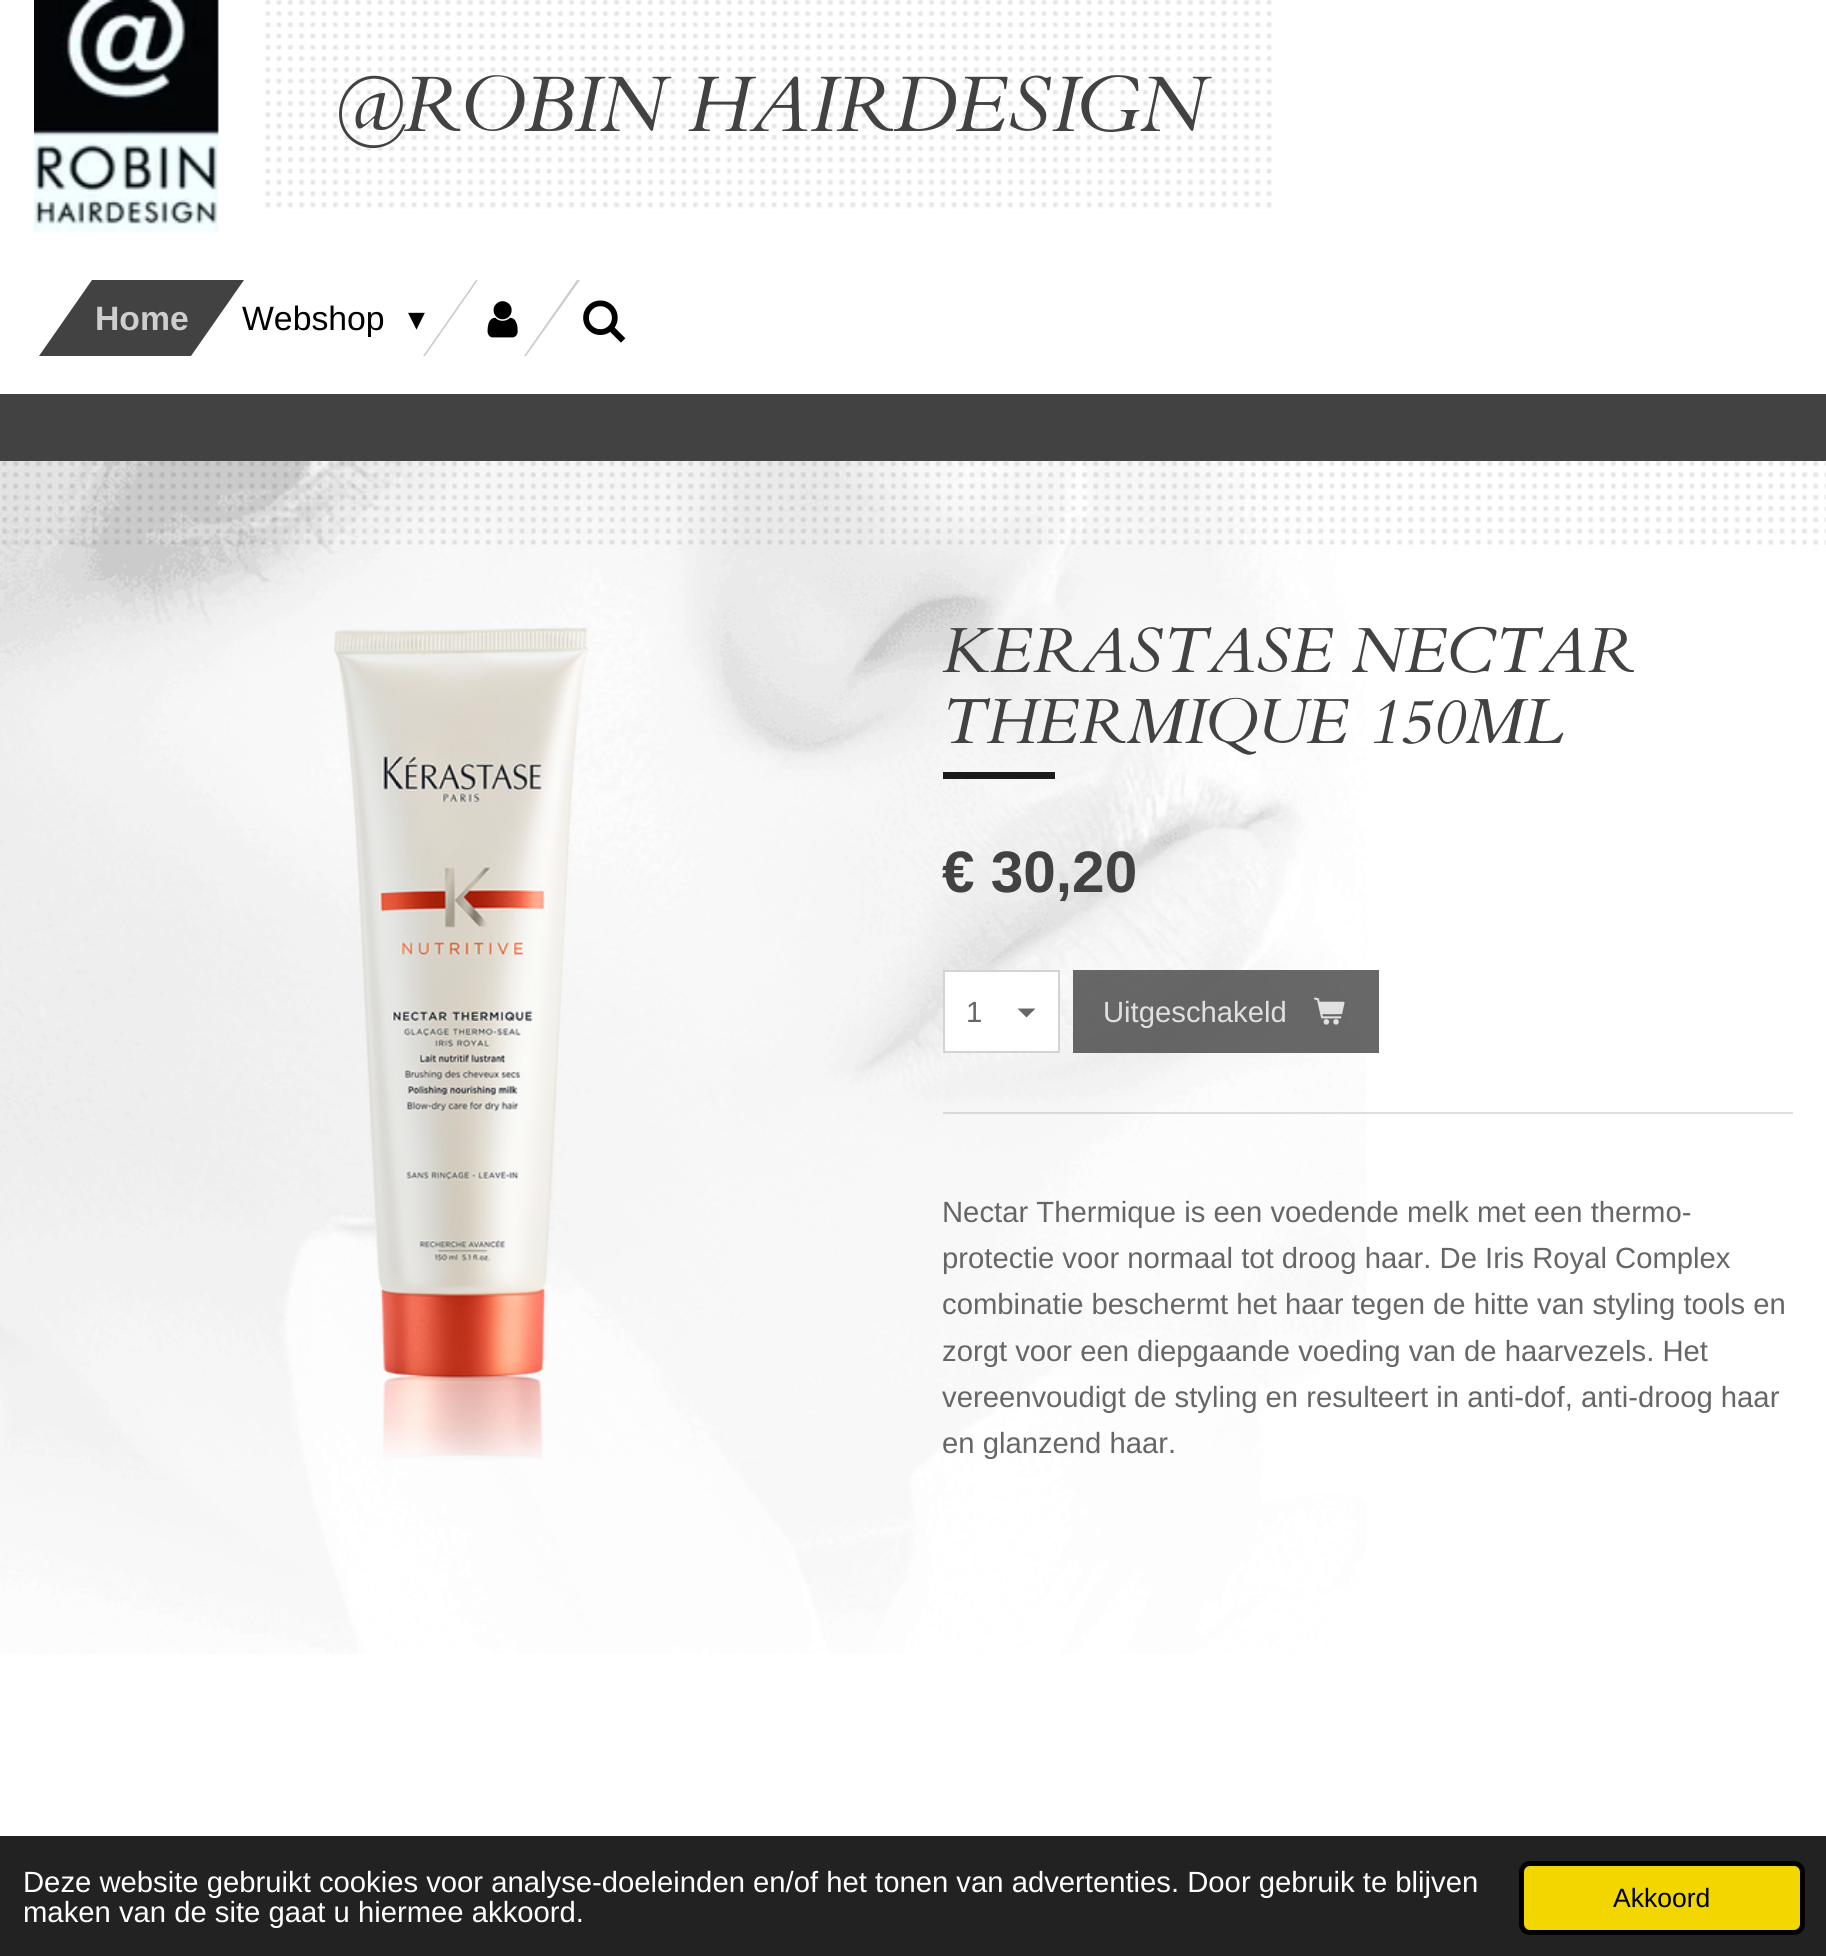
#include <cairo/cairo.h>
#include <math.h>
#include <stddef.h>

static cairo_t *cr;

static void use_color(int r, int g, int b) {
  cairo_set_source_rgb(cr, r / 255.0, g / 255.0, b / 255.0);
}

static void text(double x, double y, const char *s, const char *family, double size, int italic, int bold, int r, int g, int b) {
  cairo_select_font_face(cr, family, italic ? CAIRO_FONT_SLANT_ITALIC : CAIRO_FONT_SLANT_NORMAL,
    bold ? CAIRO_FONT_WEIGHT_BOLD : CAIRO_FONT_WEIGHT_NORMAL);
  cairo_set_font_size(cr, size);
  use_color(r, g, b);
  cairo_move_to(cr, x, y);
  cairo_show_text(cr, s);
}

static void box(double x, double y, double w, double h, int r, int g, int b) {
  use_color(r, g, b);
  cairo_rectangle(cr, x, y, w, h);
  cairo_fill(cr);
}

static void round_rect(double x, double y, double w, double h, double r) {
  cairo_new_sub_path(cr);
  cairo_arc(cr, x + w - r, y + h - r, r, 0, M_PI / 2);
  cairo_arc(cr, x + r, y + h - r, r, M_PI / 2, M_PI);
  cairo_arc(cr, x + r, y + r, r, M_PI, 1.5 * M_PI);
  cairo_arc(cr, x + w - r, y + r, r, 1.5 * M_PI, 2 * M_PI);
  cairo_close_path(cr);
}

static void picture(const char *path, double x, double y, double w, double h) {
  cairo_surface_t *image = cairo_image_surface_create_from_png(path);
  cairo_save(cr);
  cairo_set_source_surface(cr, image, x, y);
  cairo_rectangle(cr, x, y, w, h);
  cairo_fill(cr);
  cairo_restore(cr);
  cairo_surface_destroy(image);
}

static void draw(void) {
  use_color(255, 255, 255);
  cairo_paint(cr);
  picture("img_01.png", 34, 0, 185, 232);
  picture("img_02.png", 265, 0, 1007, 214);
  use_color(204, 204, 204);
  cairo_new_path(cr);
  cairo_move_to(cr, 476, 280);
  cairo_line_to(cr, 478, 280);
  cairo_line_to(cr, 425, 356);
  cairo_line_to(cr, 423, 356);
  cairo_close_path(cr);
  cairo_fill(cr);
  picture("img_03.png", 487, 301, 31, 37);
  cairo_new_path(cr);
  cairo_move_to(cr, 577, 280);
  cairo_line_to(cr, 580, 280);
  cairo_line_to(cr, 526, 356);
  cairo_line_to(cr, 524, 356);
  cairo_close_path(cr);
  cairo_fill(cr);
  picture("img_04.png", 583, 300, 43, 43);
  picture("img_05.png", 2, 461, 1824, 84);
  box(0, 394, 1826, 67, 66, 66, 66);
  picture("img_06.png", 0, 461, 1367, 1193);
  picture("img_07.png", 333, 627, 256, 833);
  box(943, 772, 112, 7, 26, 26, 26);
  box(945, 972, 113, 79, 255, 255, 255);
  use_color(102, 102, 102);
  cairo_new_path(cr);
  cairo_move_to(cr, 1026.5, 1017.5);
  cairo_line_to(cr, 1017.5, 1008.5);
  cairo_line_to(cr, 1035.5, 1008.5);
  cairo_close_path(cr);
  cairo_fill(cr);
  cairo_rectangle(cr, 944, 971, 115, 81);
  use_color(211, 211, 211);
  cairo_stroke(cr);
  cairo_set_source_rgba(cr, 0.259, 0.259, 0.259, 0.8);
  cairo_rectangle(cr, 1073, 970, 306, 83);
  cairo_fill(cr);
  picture("img_08.png", 1314, 997, 31, 28);
  cairo_set_source_rgba(cr, 0.4, 0.4, 0.4, 0.2);
  cairo_rectangle(cr, 943, 1112, 850, 2);
  cairo_fill(cr);
  box(0, 1836, 1826, 120, 34, 34, 34);
  use_color(241, 214, 0);
  round_rect(1521.5, 1863.5, 281, 69, 8.5);
  cairo_fill_preserve(cr);
  use_color(0, 0, 0);
  cairo_set_line_width(cr, 5);
  cairo_stroke(cr);
  text(331, 131, "@ROBIN HAIRDESIGN", "Cardo", 78.75, 1, 0, 66, 66, 66);
  text(242, 330, "Webshop", "Liberation Sans", 33.75, 0, 0, 0, 0, 0);
  use_color(66, 66, 66);
  cairo_new_path(cr);
  cairo_move_to(cr, 92, 280);
  cairo_line_to(cr, 244, 280);
  cairo_line_to(cr, 191, 356);
  cairo_line_to(cr, 39, 356);
  cairo_close_path(cr);
  cairo_fill(cr);
  text(95, 330, "Home", "Liberation Sans", 33.75, 0, 1, 206, 206, 206);
  text(408, 330, "▾", "DejaVu Sans", 33.75, 0, 0, 0, 0, 0);
  text(942, 672, "KERASTASE NECTAR", "Cardo", 63.75, 1, 0, 66, 66, 66);
  text(942, 743, "THERMIQUE 150ML", "Cardo", 63.75, 1, 0, 66, 66, 66);
  text(942, 892, "€ 30,20", "Liberation Sans", 58.5, 0, 1, 66, 66, 66);
  text(966, 1022, "1", "Liberation Sans", 29.25, 0, 0, 102, 102, 102);
  text(1103, 1022, "Uitgeschakeld", "Liberation Sans", 29.25, 0, 0, 224, 224, 224);
  text(942, 1222, "Nectar Thermique is een voedende melk met een thermo-", "Liberation Sans", 29.25, 0, 0, 102, 102, 102);
  text(942, 1268, "protectie voor normaal tot droog haar. De Iris Royal Complex", "Liberation Sans", 29.25, 0, 0, 102, 102, 102);
  text(942, 1314, "combinatie beschermt het haar tegen de hitte van styling tools en", "Liberation Sans", 29.25, 0, 0, 102, 102, 102);
  text(942, 1361, "zorgt voor een diepgaande voeding van de haarvezels. Het", "Liberation Sans", 29.25, 0, 0, 102, 102, 102);
  text(942, 1407, "vereenvoudigt de styling en resulteert in anti-dof, anti-droog haar", "Liberation Sans", 29.25, 0, 0, 102, 102, 102);
  text(942, 1453, "en glanzend haar.", "Liberation Sans", 29.25, 0, 0, 102, 102, 102);
  text(23, 1892, "Deze website gebruikt cookies voor analyse-doeleinden en/of het tonen van advertenties. Door gebruik te blijven", "Liberation Sans", 29.25, 0, 0, 255, 255, 255);
  text(23, 1922, "maken van de site gaat u hiermee akkoord.", "Liberation Sans", 29.25, 0, 0, 255, 255, 255);
  text(1613, 1907, "Akkoord", "Liberation Sans", 26.5, 0, 0, 0, 0, 0);
}

int main(void) {
  cairo_surface_t *surface = cairo_image_surface_create(CAIRO_FORMAT_RGB24, 1826, 1956);
  cr = cairo_create(surface);
  cairo_font_options_t *options = cairo_font_options_create();
  cairo_font_options_set_hint_metrics(options, CAIRO_HINT_METRICS_OFF);
  cairo_font_options_set_hint_style(options, CAIRO_HINT_STYLE_NONE);
  cairo_set_font_options(cr, options);
  cairo_set_miter_limit(cr, 4);
  draw();
  cairo_surface_write_to_png(surface, "out.png");
  cairo_font_options_destroy(options);
  cairo_destroy(cr);
  cairo_surface_destroy(surface);
  return 0;
}
